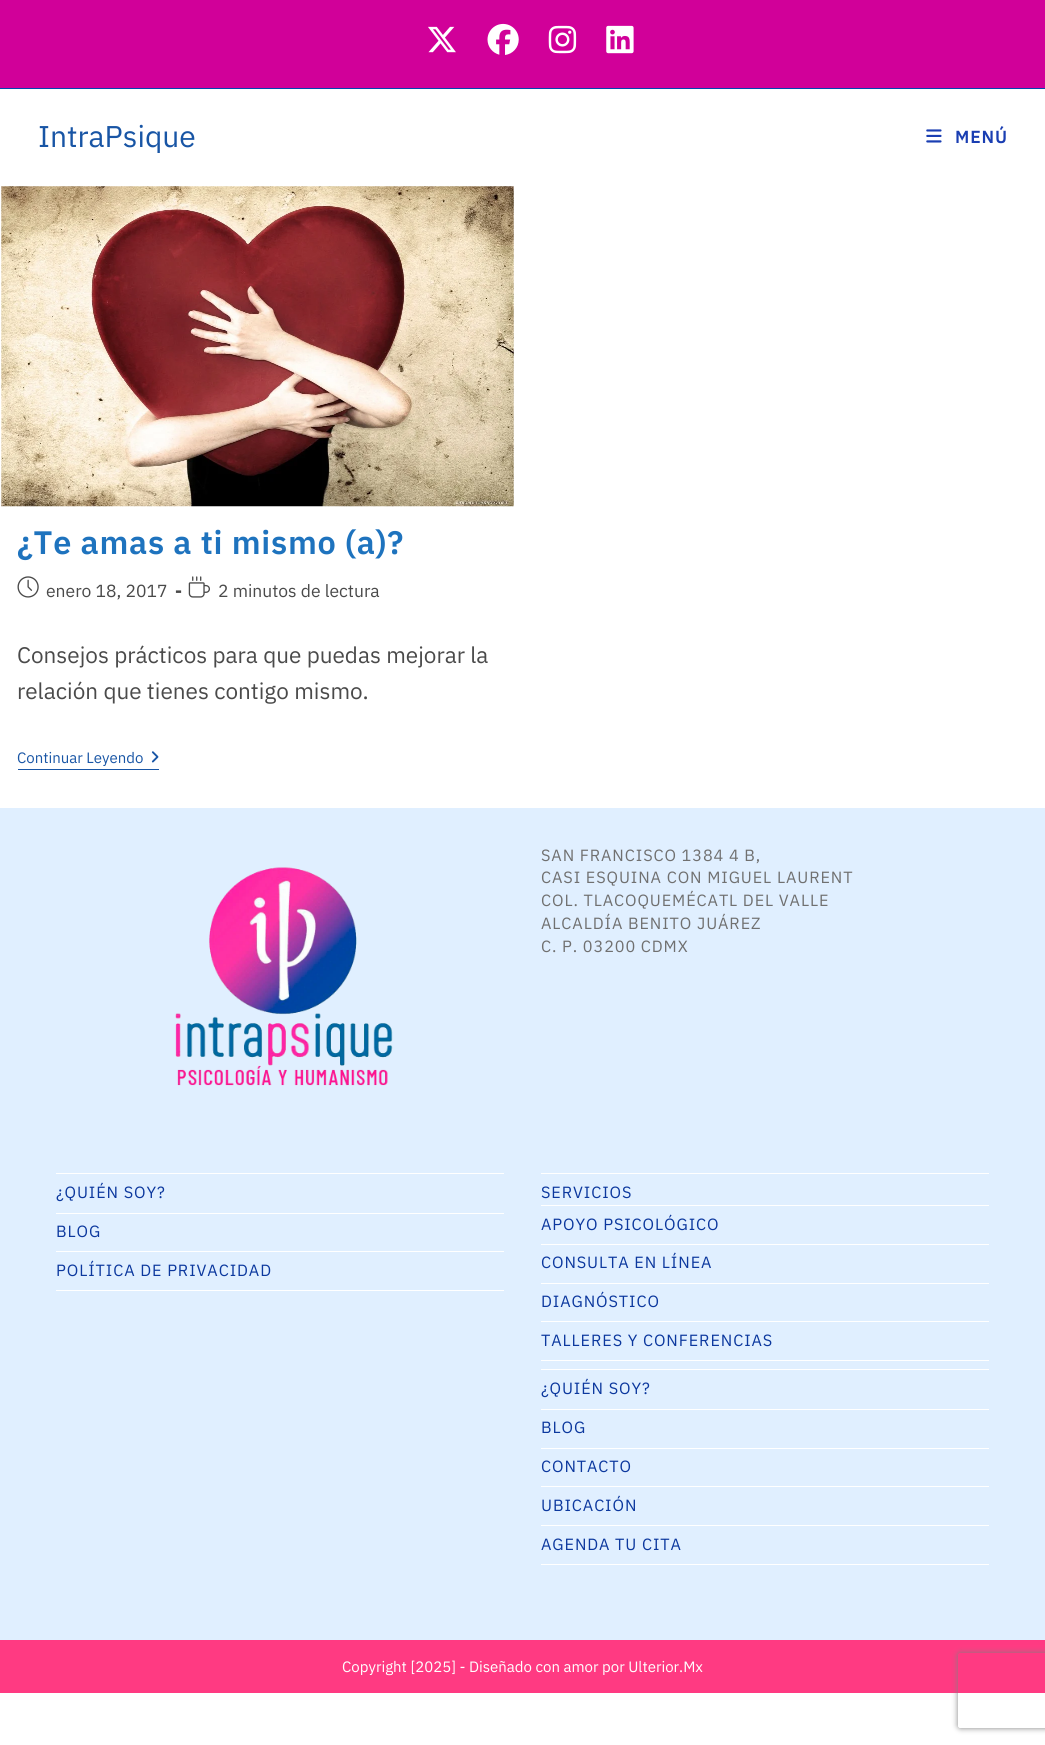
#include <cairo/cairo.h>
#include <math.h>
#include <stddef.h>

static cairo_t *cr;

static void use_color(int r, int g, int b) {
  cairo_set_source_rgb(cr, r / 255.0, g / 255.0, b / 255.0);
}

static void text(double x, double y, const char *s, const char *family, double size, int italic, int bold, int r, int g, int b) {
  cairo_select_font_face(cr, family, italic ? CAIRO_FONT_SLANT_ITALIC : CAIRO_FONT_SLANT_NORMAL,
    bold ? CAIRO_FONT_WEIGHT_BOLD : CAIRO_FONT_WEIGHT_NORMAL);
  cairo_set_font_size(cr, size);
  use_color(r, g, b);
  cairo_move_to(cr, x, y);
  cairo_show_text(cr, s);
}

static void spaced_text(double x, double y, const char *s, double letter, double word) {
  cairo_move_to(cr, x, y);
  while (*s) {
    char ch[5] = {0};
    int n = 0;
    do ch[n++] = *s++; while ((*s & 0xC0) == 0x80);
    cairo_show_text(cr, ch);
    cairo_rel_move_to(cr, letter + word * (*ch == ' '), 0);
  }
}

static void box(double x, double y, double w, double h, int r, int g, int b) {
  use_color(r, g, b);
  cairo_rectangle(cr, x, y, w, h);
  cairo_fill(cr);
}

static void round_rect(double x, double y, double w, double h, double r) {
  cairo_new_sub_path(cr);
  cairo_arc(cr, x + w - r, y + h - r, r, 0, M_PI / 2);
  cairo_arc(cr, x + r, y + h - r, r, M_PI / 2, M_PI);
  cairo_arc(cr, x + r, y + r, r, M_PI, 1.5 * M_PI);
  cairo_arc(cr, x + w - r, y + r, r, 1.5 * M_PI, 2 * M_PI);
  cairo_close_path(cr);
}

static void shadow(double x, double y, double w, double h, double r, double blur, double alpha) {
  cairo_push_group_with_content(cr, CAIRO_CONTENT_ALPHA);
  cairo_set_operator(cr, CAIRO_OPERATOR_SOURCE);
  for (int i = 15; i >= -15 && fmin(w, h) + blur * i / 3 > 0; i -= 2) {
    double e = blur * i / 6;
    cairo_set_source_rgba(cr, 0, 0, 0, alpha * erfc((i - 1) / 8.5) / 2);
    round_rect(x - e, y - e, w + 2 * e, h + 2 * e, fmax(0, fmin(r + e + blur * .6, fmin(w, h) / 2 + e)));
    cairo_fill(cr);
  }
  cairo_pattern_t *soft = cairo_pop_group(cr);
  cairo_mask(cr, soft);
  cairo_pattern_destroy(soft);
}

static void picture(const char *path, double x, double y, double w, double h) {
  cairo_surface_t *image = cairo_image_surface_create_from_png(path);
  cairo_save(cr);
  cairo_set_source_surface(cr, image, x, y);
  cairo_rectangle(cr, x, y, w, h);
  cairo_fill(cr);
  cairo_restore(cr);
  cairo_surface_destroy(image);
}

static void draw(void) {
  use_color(255, 255, 255);
  cairo_paint(cr);
  box(0, 0, 1045, 88, 209, 0, 153);
  box(0, 88, 1045, 1, 0, 73, 175);
  picture("img_01.png", 428, 26, 28, 27);
  picture("img_02.png", 487, 23, 32, 32);
  picture("img_03.png", 548, 25, 29, 29);
  picture("img_04.png", 606, 25, 28, 29);
  picture("img_05.png", 926, 129, 16, 14);
  picture("img_06.png", 1, 186, 513, 321);
  picture("img_07.png", 17, 576, 22, 22);
  picture("img_08.png", 188, 576, 22, 22);
  box(18, 769, 141, 1, 24, 85, 165);
  picture("img_09.png", 151, 751, 8, 12);
  box(0, 808, 1045, 832, 224, 239, 255);
  picture("img_10.png", 175, 867, 218, 219);
  box(56, 1173, 448, 1, 255, 255, 255);
  box(56, 1213, 448, 1, 255, 255, 255);
  box(56, 1251, 448, 1, 255, 255, 255);
  box(56, 1290, 448, 1, 255, 255, 255);
  box(541, 1173, 448, 1, 255, 255, 255);
  box(541, 1369, 448, 1, 255, 255, 255);
  box(541, 1205, 448, 1, 255, 255, 255);
  box(541, 1244, 448, 1, 255, 255, 255);
  box(541, 1283, 448, 1, 255, 255, 255);
  box(541, 1321, 448, 1, 255, 255, 255);
  box(541, 1360, 448, 1, 255, 255, 255);
  box(541, 1409, 448, 1, 255, 255, 255);
  box(541, 1448, 448, 1, 255, 255, 255);
  box(541, 1486, 448, 1, 255, 255, 255);
  box(541, 1525, 448, 1, 255, 255, 255);
  box(541, 1564, 448, 1, 255, 255, 255);
  box(0, 1640, 1045, 53, 255, 58, 130);
  cairo_save(cr);
  cairo_set_fill_rule(cr, CAIRO_FILL_RULE_EVEN_ODD);
  cairo_new_path(cr);
  cairo_move_to(cr, 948, 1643);
  cairo_line_to(cr, 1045, 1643);
  cairo_line_to(cr, 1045, 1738);
  cairo_line_to(cr, 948, 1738);
  cairo_close_path(cr);
  cairo_move_to(cr, 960.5, 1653);
  cairo_line_to(cr, 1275.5, 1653);
  cairo_curve_to(cr, 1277, 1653, 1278, 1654, 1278, 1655.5);
  cairo_line_to(cr, 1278, 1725.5);
  cairo_curve_to(cr, 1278, 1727, 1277, 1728, 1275.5, 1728);
  cairo_line_to(cr, 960.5, 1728);
  cairo_curve_to(cr, 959, 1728, 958, 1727, 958, 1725.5);
  cairo_line_to(cr, 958, 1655.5);
  cairo_curve_to(cr, 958, 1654, 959, 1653, 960.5, 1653);
  cairo_close_path(cr);
  cairo_clip(cr);
  use_color(128, 128, 128);
  shadow(958, 1653, 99, 75, 2.5, 3, 1);
  cairo_restore(cr);
  text(38, 147, "IntraPsique", "IBM Plex Sans", 30, 0, 0, 24, 85, 165);
  cairo_select_font_face(cr, "IBM Plex Sans SemiBold", CAIRO_FONT_SLANT_NORMAL, CAIRO_FONT_WEIGHT_NORMAL);
  cairo_set_font_size(cr, 17.5);
  use_color(26, 62, 178);
  spaced_text(955, 143, "MENÚ", 0.9, 0);
  cairo_set_font_size(cr, 32.5);
  use_color(30, 115, 190);
  spaced_text(17, 554, "¿Te amas a ti mismo (a)?", 0.75, 0);
  text(46, 597, "enero 18, 2017", "IBM Plex Sans", 17.5, 0, 0, 74, 74, 74);
  text(175, 597, "-", "IBM Plex Sans", 17.5, 0, 1, 74, 74, 74);
  text(218, 597, "2 minutos de lectura", "IBM Plex Sans", 17.5, 0, 0, 74, 74, 74);
  text(17, 663, "Consejos prácticos para que puedas mejorar la", "IBM Plex Sans", 22.5, 0, 0, 74, 74, 74);
  text(17, 699, "relación que tienes contigo mismo.", "IBM Plex Sans", 22.5, 0, 0, 74, 74, 74);
  text(17, 763, "Continuar Leyendo", "IBM Plex Sans", 15, 0, 0, 24, 85, 165);
  cairo_set_font_size(cr, 16.25);
  use_color(112, 112, 112);
  spaced_text(541, 861, "SAN FRANCISCO 1384 4 B,", 0.9, 0);
  spaced_text(541, 883, "CASI ESQUINA CON MIGUEL LAURENT", 0.9, 0);
  spaced_text(541, 906, "COL. TLACOQUEMÉCATL DEL VALLE", 0.9, 0);
  spaced_text(541, 929, "ALCALDÍA BENITO JUÁREZ", 0.9, 0);
  spaced_text(541, 952, "C. P. 03200 CDMX", 0.9, 0);
  use_color(12, 56, 158);
  spaced_text(56, 1198, "¿QUIÉN SOY?", 0.9, 0);
  spaced_text(56, 1237, "BLOG", 0.9, 0);
  spaced_text(56, 1276, "POLÍTICA DE PRIVACIDAD", 0.9, 0);
  spaced_text(541, 1198, "SERVICIOS", 0.9, 0);
  spaced_text(541, 1230, "APOYO PSICOLÓGICO", 0.9, 0);
  spaced_text(541, 1268, "CONSULTA EN LÍNEA", 0.9, 0);
  spaced_text(541, 1307, "DIAGNÓSTICO", 0.9, 0);
  spaced_text(541, 1346, "TALLERES Y CONFERENCIAS", 0.9, 0);
  spaced_text(541, 1394, "¿QUIÉN SOY?", 0.9, 0);
  spaced_text(541, 1433, "BLOG", 0.9, 0);
  spaced_text(541, 1472, "CONTACTO", 0.9, 0);
  spaced_text(541, 1511, "UBICACIÓN", 0.9, 0);
  spaced_text(541, 1550, "AGENDA TU CITA", 0.9, 0);
  text(342, 1672, "Copyright [2025] - Diseñado con amor por Ulterior.Mx", "IBM Plex Sans", 15, 0, 0, 255, 255, 255);
}

int main(void) {
  cairo_surface_t *surface = cairo_image_surface_create(CAIRO_FORMAT_RGB24, 1045, 1745);
  cr = cairo_create(surface);
  cairo_font_options_t *options = cairo_font_options_create();
  cairo_font_options_set_hint_metrics(options, CAIRO_HINT_METRICS_OFF);
  cairo_font_options_set_hint_style(options, CAIRO_HINT_STYLE_NONE);
  cairo_set_font_options(cr, options);
  cairo_set_miter_limit(cr, 4);
  draw();
  cairo_surface_write_to_png(surface, "out.png");
  cairo_font_options_destroy(options);
  cairo_destroy(cr);
  cairo_surface_destroy(surface);
  return 0;
}
